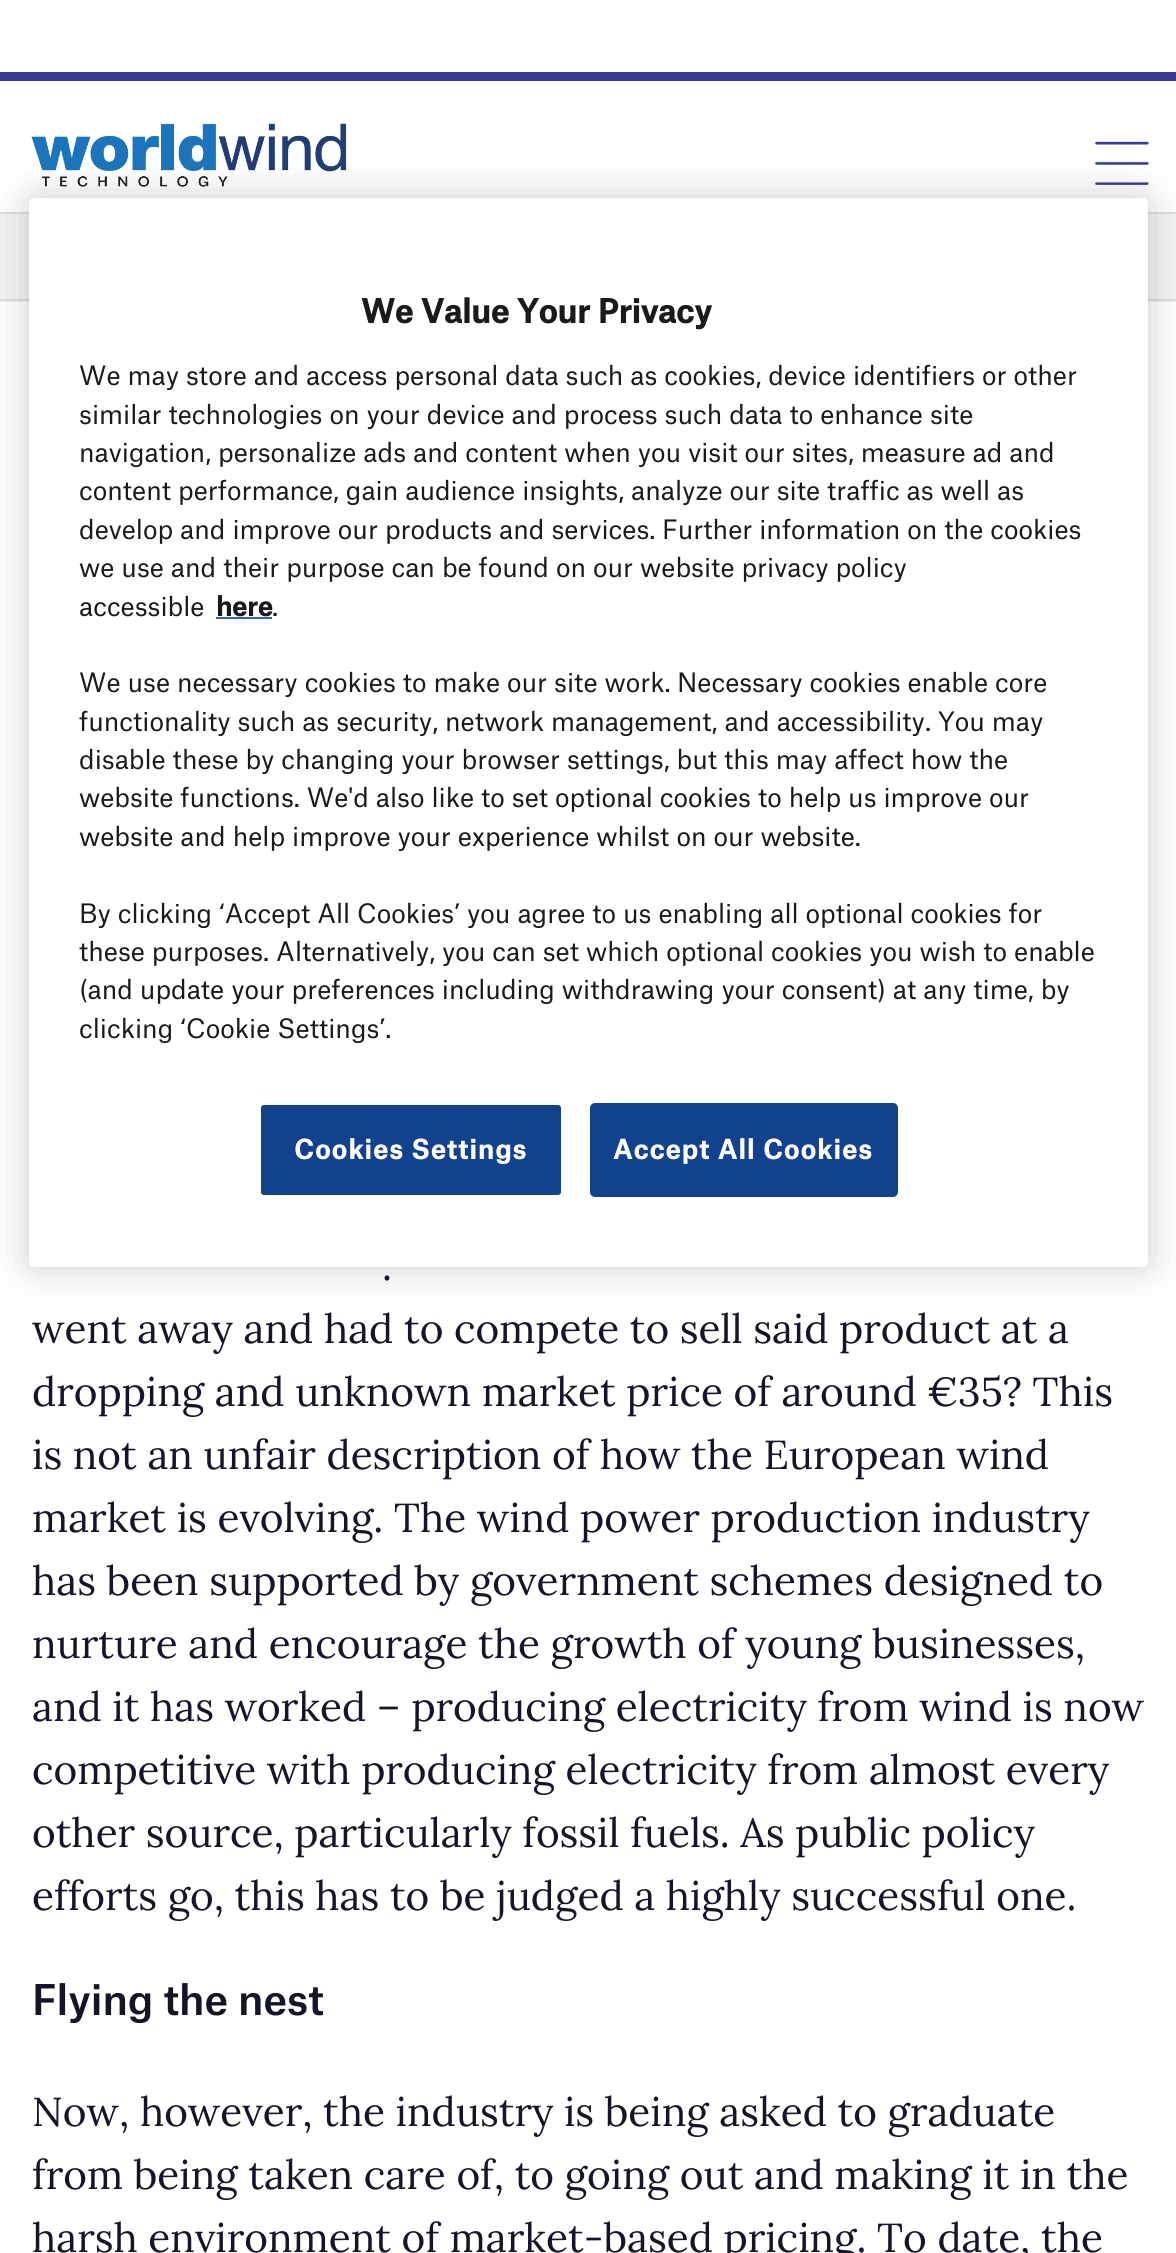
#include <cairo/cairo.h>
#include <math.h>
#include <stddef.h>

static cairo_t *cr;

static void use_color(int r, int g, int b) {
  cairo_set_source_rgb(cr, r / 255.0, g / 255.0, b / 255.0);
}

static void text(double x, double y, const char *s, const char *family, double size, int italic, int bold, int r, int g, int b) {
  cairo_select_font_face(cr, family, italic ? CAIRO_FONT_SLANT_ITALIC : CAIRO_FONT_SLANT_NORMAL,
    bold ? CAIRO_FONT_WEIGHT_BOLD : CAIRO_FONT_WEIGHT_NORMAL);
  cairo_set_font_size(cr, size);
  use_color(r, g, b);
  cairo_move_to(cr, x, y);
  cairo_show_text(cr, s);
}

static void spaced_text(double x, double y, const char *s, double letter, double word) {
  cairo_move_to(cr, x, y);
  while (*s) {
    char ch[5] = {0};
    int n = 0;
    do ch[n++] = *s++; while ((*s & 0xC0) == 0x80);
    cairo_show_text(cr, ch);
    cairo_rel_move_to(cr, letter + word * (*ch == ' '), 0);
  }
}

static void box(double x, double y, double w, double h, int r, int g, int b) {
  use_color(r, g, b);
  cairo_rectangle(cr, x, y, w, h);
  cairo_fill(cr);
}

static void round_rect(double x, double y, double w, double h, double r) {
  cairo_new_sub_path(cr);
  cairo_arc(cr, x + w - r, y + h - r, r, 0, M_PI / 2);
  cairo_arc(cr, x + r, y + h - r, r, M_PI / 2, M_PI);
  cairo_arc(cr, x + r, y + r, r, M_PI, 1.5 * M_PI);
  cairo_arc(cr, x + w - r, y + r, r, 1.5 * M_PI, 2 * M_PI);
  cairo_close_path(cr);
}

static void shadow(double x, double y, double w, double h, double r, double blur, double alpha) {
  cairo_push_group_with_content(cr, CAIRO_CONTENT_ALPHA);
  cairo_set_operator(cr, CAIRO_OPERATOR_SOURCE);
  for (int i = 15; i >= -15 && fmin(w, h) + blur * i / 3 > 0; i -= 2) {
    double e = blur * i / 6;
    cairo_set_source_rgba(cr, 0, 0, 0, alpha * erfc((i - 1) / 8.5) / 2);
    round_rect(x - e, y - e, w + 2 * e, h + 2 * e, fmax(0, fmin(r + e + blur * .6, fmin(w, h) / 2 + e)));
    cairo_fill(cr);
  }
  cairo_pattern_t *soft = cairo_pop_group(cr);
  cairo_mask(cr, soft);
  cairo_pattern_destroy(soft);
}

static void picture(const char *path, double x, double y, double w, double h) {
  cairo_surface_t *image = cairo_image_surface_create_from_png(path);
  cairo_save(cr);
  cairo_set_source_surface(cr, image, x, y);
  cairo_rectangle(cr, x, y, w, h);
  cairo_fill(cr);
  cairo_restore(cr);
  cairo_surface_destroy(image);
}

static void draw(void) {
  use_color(255, 255, 255);
  cairo_paint(cr);
  box(0, 72, 1176, 9, 55, 57, 151);
  picture("img_01.png", 31, 123, 316, 64);
  picture("img_02.png", 1095, 141, 54, 44);
  box(0, 214, 1176, 88, 243, 243, 241);
  box(0, 212, 1176, 2, 221, 221, 221);
  box(0, 299, 1176, 2, 221, 221, 221);
  use_color(0, 0, 0);
  shadow(29, 198, 1119, 1069, 6, 20, 0.2);
  use_color(255, 255, 255);
  round_rect(29, 198, 1119, 1069, 6);
  cairo_fill(cr);
  box(216, 617, 56, 2, 56, 96, 190);
  use_color(18, 65, 141);
  round_rect(260, 1104, 302, 92, 4);
  cairo_fill_preserve(cr);
  use_color(255, 255, 255);
  cairo_stroke(cr);
  use_color(18, 65, 141);
  round_rect(591, 1104, 306, 92, 4);
  cairo_fill_preserve(cr);
  cairo_stroke(cr);
  text(361, 323, "We Value Your Privacy", "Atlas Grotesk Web", 31.5, 0, 1, 26, 26, 26);
  text(79, 385, "We may store and access personal data such as cookies, device identifiers or other", "Atlas Grotesk Web", 25.6, 0, 0, 26, 26, 26);
  text(79, 424, "similar technologies on your device and process such data to enhance site", "Atlas Grotesk Web", 25.6, 0, 0, 26, 26, 26);
  text(79, 462, "navigation, personalize ads and content when you visit our sites, measure ad and", "Atlas Grotesk Web", 25.6, 0, 0, 26, 26, 26);
  text(79, 500, "content performance, gain audience insights, analyze our site traffic as well as", "Atlas Grotesk Web", 25.6, 0, 0, 26, 26, 26);
  text(79, 539, "develop and improve our products and services.", "Atlas Grotesk Web", 25.6, 0, 0, 26, 26, 26);
  text(662, 539, "Further information on the cookies", "Atlas Grotesk Web", 25.6, 0, 0, 26, 26, 26);
  text(79, 577, "we use and their purpose can be found on our website privacy policy", "Atlas Grotesk Web", 25.6, 0, 0, 26, 26, 26);
  text(79, 616, "accessible", "Atlas Grotesk Web", 25.6, 0, 0, 26, 26, 26);
  text(216, 616, "here", "Atlas Grotesk Web", 25.6, 0, 1, 26, 26, 26);
  text(272, 616, ".", "Atlas Grotesk Web", 25.6, 0, 0, 26, 26, 26);
  text(79, 692, "We use necessary cookies to make our site work.", "Atlas Grotesk Web", 25.6, 0, 0, 26, 26, 26);
  text(677, 692, "Necessary cookies enable core", "Atlas Grotesk Web", 25.6, 0, 0, 26, 26, 26);
  text(79, 731, "functionality such as security, network management, and accessibility. You may", "Atlas Grotesk Web", 25.6, 0, 0, 26, 26, 26);
  text(79, 769, "disable these by changing your browser settings, but this may affect how the", "Atlas Grotesk Web", 25.6, 0, 0, 26, 26, 26);
  text(79, 807, "website functions. We'd also like to set optional cookies to help us improve our", "Atlas Grotesk Web", 25.6, 0, 0, 26, 26, 26);
  text(79, 846, "website and help improve your experience whilst on our website.", "Atlas Grotesk Web", 25.6, 0, 0, 26, 26, 26);
  text(79, 923, "By clicking ‘Accept All Cookies’ you agree to us enabling all optional cookies for", "Atlas Grotesk Web", 25.6, 0, 0, 26, 26, 26);
  text(79, 961, "these purposes. Alternatively, you can set which optional cookies you wish to enable", "Atlas Grotesk Web", 25.6, 0, 0, 26, 26, 26);
  text(79, 999, "(and update your preferences including withdrawing your consent) at any time, by", "Atlas Grotesk Web", 25.6, 0, 0, 26, 26, 26);
  text(79, 1038, "clicking ‘Cookie Settings’.", "Atlas Grotesk Web", 25.6, 0, 0, 26, 26, 26);
  cairo_select_font_face(cr, "Atlas Grotesk Web", CAIRO_FONT_SLANT_NORMAL, CAIRO_FONT_WEIGHT_BOLD);
  use_color(255, 255, 255);
  spaced_text(294, 1159, "Cookies Settings", 1.25, 0);
  spaced_text(613, 1159, "Accept All Cookies", 1.25, 0);
  text(382, 1280, ".", "Lora", 40.5, 0, 0, 21, 21, 41);
  text(32, 1343, "went away and had to compete to sell said product at a", "Lora", 40.5, 0, 0, 21, 21, 41);
  text(32, 1406, "dropping and unknown market price of around €35? This", "Lora", 40.5, 0, 0, 21, 21, 41);
  text(32, 1469, "is not an unfair description of how the European wind", "Lora", 40.5, 0, 0, 21, 21, 41);
  text(32, 1532, "market is evolving. The wind power production industry", "Lora", 40.5, 0, 0, 21, 21, 41);
  text(32, 1595, "has been supported by government schemes designed to", "Lora", 40.5, 0, 0, 21, 21, 41);
  text(32, 1658, "nurture and encourage the growth of young businesses,", "Lora", 40.5, 0, 0, 21, 21, 41);
  text(32, 1721, "and it has worked – producing electricity from wind is now", "Lora", 40.5, 0, 0, 21, 21, 41);
  text(32, 1784, "competitive with producing electricity from almost every", "Lora", 40.5, 0, 0, 21, 21, 41);
  text(32, 1847, "other source, particularly fossil fuels. As public policy", "Lora", 40.5, 0, 0, 21, 21, 41);
  text(32, 1910, "efforts go, this has to be judged a highly successful one.", "Lora", 40.5, 0, 0, 21, 21, 41);
  text(32, 2015, "Flying the nest", "Atlas Grotesk Web Medium", 40.5, 0, 0, 21, 21, 41);
  text(32, 2126, "Now, however, the industry is being asked to graduate", "Lora", 40.5, 0, 0, 21, 21, 41);
  text(32, 2189, "from being taken care of, to going out and making it in the", "Lora", 40.5, 0, 0, 21, 21, 41);
  text(32, 2252, "harsh environment of market-based pricing. To date, the", "Lora", 40.5, 0, 0, 21, 21, 41);
}

int main(void) {
  cairo_surface_t *surface = cairo_image_surface_create(CAIRO_FORMAT_RGB24, 1176, 2253);
  cr = cairo_create(surface);
  cairo_font_options_t *options = cairo_font_options_create();
  cairo_font_options_set_hint_metrics(options, CAIRO_HINT_METRICS_OFF);
  cairo_font_options_set_hint_style(options, CAIRO_HINT_STYLE_NONE);
  cairo_set_font_options(cr, options);
  cairo_set_miter_limit(cr, 4);
  draw();
  cairo_surface_write_to_png(surface, "out.png");
  cairo_font_options_destroy(options);
  cairo_destroy(cr);
  cairo_surface_destroy(surface);
  return 0;
}
